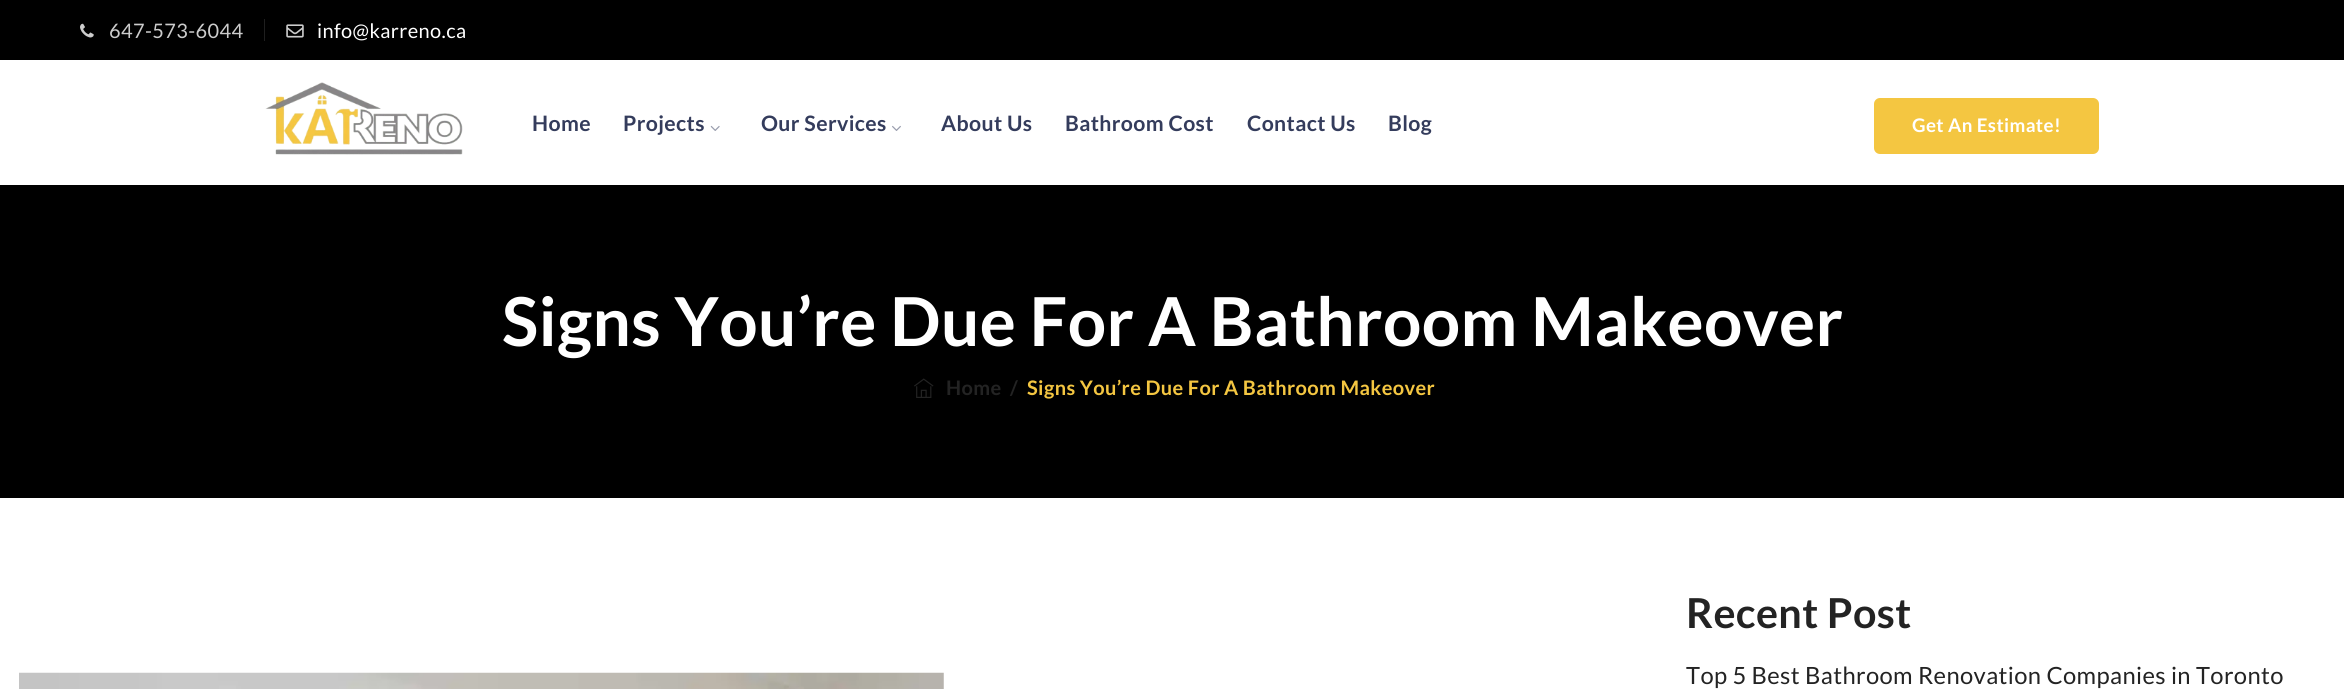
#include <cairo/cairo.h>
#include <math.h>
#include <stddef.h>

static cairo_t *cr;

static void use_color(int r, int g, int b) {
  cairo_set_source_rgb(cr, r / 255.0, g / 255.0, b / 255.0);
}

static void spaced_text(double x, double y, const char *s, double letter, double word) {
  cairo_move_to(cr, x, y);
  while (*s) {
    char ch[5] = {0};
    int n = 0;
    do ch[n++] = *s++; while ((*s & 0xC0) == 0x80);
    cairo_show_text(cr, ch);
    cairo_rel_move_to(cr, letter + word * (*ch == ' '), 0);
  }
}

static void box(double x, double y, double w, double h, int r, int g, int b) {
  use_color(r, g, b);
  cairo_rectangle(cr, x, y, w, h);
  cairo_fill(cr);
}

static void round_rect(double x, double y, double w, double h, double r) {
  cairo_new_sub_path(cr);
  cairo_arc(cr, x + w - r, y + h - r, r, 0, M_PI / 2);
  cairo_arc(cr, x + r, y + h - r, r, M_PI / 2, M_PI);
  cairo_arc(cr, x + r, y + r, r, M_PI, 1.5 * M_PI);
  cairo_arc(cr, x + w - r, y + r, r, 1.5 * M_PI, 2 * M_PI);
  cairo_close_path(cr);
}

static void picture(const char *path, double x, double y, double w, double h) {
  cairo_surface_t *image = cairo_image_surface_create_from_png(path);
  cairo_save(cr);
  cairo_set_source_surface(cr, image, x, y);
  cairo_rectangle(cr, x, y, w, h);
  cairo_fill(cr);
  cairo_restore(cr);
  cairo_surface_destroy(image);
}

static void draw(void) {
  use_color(255, 255, 255);
  cairo_paint(cr);
  box(0, 0, 2344, 60, 0, 0, 0);
  picture("img_01.png", 80, 23, 14, 15);
  box(264, 19, 1, 22, 31, 31, 31);
  picture("img_02.png", 286, 24, 18, 14);
  picture("img_03.png", 265, 82, 198, 73);
  picture("img_04.png", 710, 125, 10, 6);
  picture("img_05.png", 892, 125, 9, 6);
  use_color(244, 198, 65);
  round_rect(1874, 98, 225, 56, 6);
  cairo_fill(cr);
  box(0, 185, 2344, 313, 0, 0, 0);
  picture("img_06.png", 914, 378, 20, 20);
  picture("img_07.png", 19, 672, 925, 17);
  cairo_select_font_face(cr, "Lato", CAIRO_FONT_SLANT_NORMAL, CAIRO_FONT_WEIGHT_NORMAL);
  cairo_set_font_size(cr, 20);
  use_color(204, 204, 204);
  spaced_text(109, 38, "647-573-6044", 0.38, 0);
  use_color(255, 255, 255);
  spaced_text(317, 38, "info@karreno.ca", 0.38, 0);
  cairo_select_font_face(cr, "Lato", CAIRO_FONT_SLANT_NORMAL, CAIRO_FONT_WEIGHT_BOLD);
  cairo_set_font_size(cr, 21.25);
  use_color(52, 60, 92);
  spaced_text(532, 131, "Home", 0.38, 0);
  spaced_text(623, 131, "Projects", 0.38, 0);
  spaced_text(761, 131, "Our Services", 0.38, 0);
  spaced_text(941, 131, "About Us", 0.38, 0);
  spaced_text(1065, 131, "Bathroom Cost", 0.38, 0);
  spaced_text(1247, 131, "Contact Us", 0.38, 0);
  spaced_text(1388, 131, "Blog", 0.38, 0);
  cairo_set_font_size(cr, 18.75);
  use_color(255, 255, 255);
  spaced_text(1912, 132, "Get An Estimate!", 0.38, 0);
  cairo_set_font_size(cr, 67.5);
  spaced_text(502, 346, "Signs You’re Due For A Bathroom Makeover", 0.38, 0);
  cairo_set_font_size(cr, 20);
  use_color(35, 35, 35);
  spaced_text(946, 395, "Home", 0.38, 0);
  spaced_text(1010, 395, "/", 0.38, 0);
  use_color(244, 198, 65);
  spaced_text(1027, 395, "Signs You’re Due For A Bathroom Makeover", 0.38, 0);
  cairo_set_font_size(cr, 41.25);
  use_color(35, 35, 35);
  spaced_text(1686, 628, "Recent Post", 0.38, 0);
  cairo_select_font_face(cr, "Lato", CAIRO_FONT_SLANT_NORMAL, CAIRO_FONT_WEIGHT_NORMAL);
  cairo_set_font_size(cr, 23.75);
  spaced_text(1686, 684, "Top 5 Best Bathroom Renovation Companies in Toronto", 0.38, 0);
}

int main(void) {
  cairo_surface_t *surface = cairo_image_surface_create(CAIRO_FORMAT_RGB24, 2344, 689);
  cr = cairo_create(surface);
  cairo_font_options_t *options = cairo_font_options_create();
  cairo_font_options_set_hint_metrics(options, CAIRO_HINT_METRICS_OFF);
  cairo_font_options_set_hint_style(options, CAIRO_HINT_STYLE_NONE);
  cairo_set_font_options(cr, options);
  cairo_set_miter_limit(cr, 4);
  draw();
  cairo_surface_write_to_png(surface, "out.png");
  cairo_font_options_destroy(options);
  cairo_destroy(cr);
  cairo_surface_destroy(surface);
  return 0;
}
